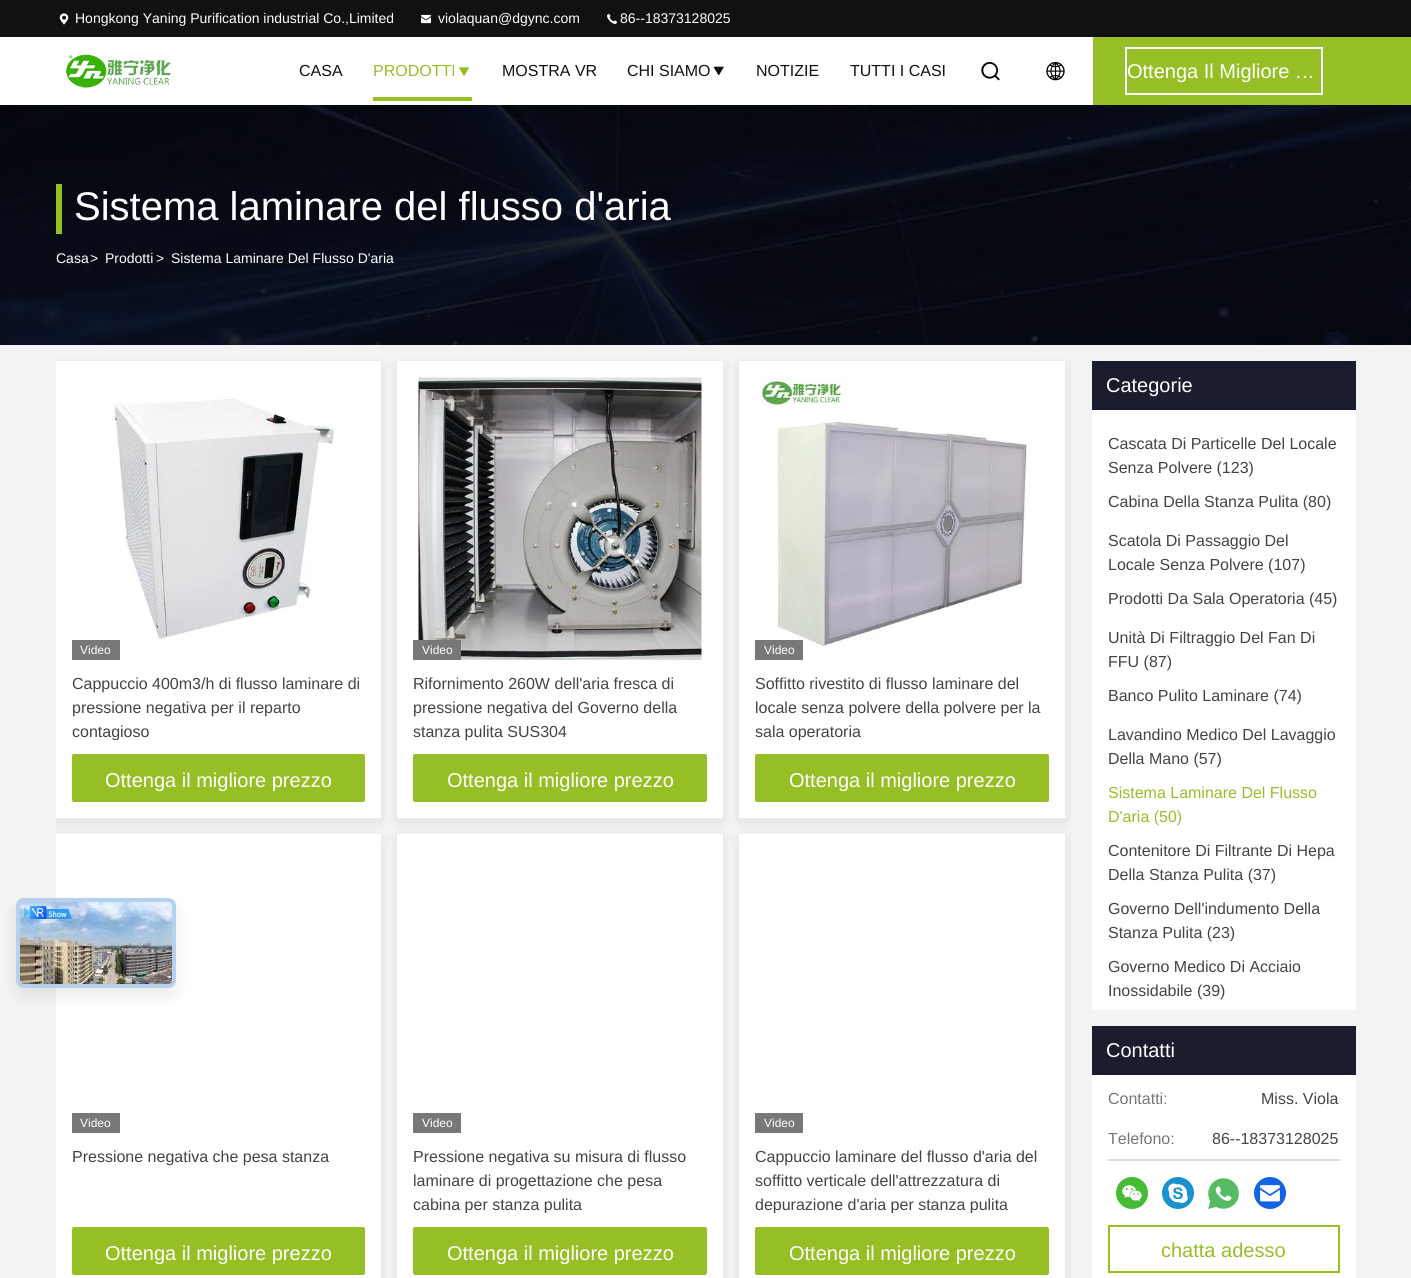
#include <cairo/cairo.h>
#include <math.h>
#include <stddef.h>

static cairo_t *cr;

static void use_color(int r, int g, int b) {
  cairo_set_source_rgb(cr, r / 255.0, g / 255.0, b / 255.0);
}

static void text(double x, double y, const char *s, const char *family, double size, int italic, int bold, int r, int g, int b) {
  cairo_select_font_face(cr, family, italic ? CAIRO_FONT_SLANT_ITALIC : CAIRO_FONT_SLANT_NORMAL,
    bold ? CAIRO_FONT_WEIGHT_BOLD : CAIRO_FONT_WEIGHT_NORMAL);
  cairo_set_font_size(cr, size);
  use_color(r, g, b);
  cairo_move_to(cr, x, y);
  cairo_show_text(cr, s);
}

static void box(double x, double y, double w, double h, int r, int g, int b) {
  use_color(r, g, b);
  cairo_rectangle(cr, x, y, w, h);
  cairo_fill(cr);
}

static void round_rect(double x, double y, double w, double h, double r) {
  cairo_new_sub_path(cr);
  cairo_arc(cr, x + w - r, y + h - r, r, 0, M_PI / 2);
  cairo_arc(cr, x + r, y + h - r, r, M_PI / 2, M_PI);
  cairo_arc(cr, x + r, y + r, r, M_PI, 1.5 * M_PI);
  cairo_arc(cr, x + w - r, y + r, r, 1.5 * M_PI, 2 * M_PI);
  cairo_close_path(cr);
}

static void shadow(double x, double y, double w, double h, double r, double blur, double alpha) {
  cairo_push_group_with_content(cr, CAIRO_CONTENT_ALPHA);
  cairo_set_operator(cr, CAIRO_OPERATOR_SOURCE);
  for (int i = 15; i >= -15 && fmin(w, h) + blur * i / 3 > 0; i -= 2) {
    double e = blur * i / 6;
    cairo_set_source_rgba(cr, 0, 0, 0, alpha * erfc((i - 1) / 8.5) / 2);
    round_rect(x - e, y - e, w + 2 * e, h + 2 * e, fmax(0, fmin(r + e + blur * .6, fmin(w, h) / 2 + e)));
    cairo_fill(cr);
  }
  cairo_pattern_t *soft = cairo_pop_group(cr);
  cairo_mask(cr, soft);
  cairo_pattern_destroy(soft);
}

static void picture(const char *path, double x, double y, double w, double h) {
  cairo_surface_t *image = cairo_image_surface_create_from_png(path);
  cairo_save(cr);
  cairo_set_source_surface(cr, image, x, y);
  cairo_rectangle(cr, x, y, w, h);
  cairo_fill(cr);
  cairo_restore(cr);
  cairo_surface_destroy(image);
}

static void draw(void) {
  use_color(255, 255, 255);
  cairo_paint(cr);
  box(0, 0, 1411, 37, 17, 17, 17);
  picture("img_01.png", 59, 13, 10, 12);
  picture("img_02.png", 421, 14, 10, 10);
  picture("img_03.png", 607, 14, 10, 10);
  picture("img_04.png", 66, 54, 105, 34);
  box(1093, 37, 318, 68, 150, 191, 38);
  picture("img_05.png", 459, 67, 10, 9);
  box(373, 97, 99, 4, 150, 191, 38);
  picture("img_06.png", 713, 66, 11, 10);
  picture("img_07.png", 981, 61, 19, 20);
  picture("img_08.png", 1046, 61, 19, 20);
  cairo_rectangle(cr, 1126, 48, 196, 46);
  use_color(255, 255, 255);
  cairo_stroke(cr);
  box(0, 345, 1411, 933, 243, 243, 243);
  picture("img_09.png", 0, 105, 1411, 240);
  box(56, 184, 6, 50, 150, 191, 38);
  cairo_save(cr);
  cairo_rectangle(cr, 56, 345, 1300, 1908);
  cairo_clip(cr);
  use_color(0, 0, 0);
  shadow(56, 365, 325, 457, 0, 6, 0.08);
  cairo_restore(cr);
  box(56, 361, 325, 457, 255, 255, 255);
  picture("img_10.png", 113, 397, 221, 244);
  box(72, 640, 48, 20, 120, 120, 120);
  use_color(150, 191, 38);
  round_rect(72, 754, 293, 48, 2);
  cairo_fill(cr);
  use_color(0, 0, 0);
  shadow(397, 365, 326, 457, 0, 6, 0.08);
  box(397, 361, 326, 457, 255, 255, 255);
  picture("img_11.png", 418, 377, 284, 283);
  box(413, 640, 48, 20, 120, 120, 120);
  use_color(150, 191, 38);
  round_rect(413, 754, 294, 48, 2);
  cairo_fill(cr);
  use_color(0, 0, 0);
  shadow(739, 365, 326, 457, 0, 6, 0.08);
  box(739, 361, 326, 457, 255, 255, 255);
  picture("img_12.png", 760, 378, 267, 269);
  box(755, 640, 48, 20, 120, 120, 120);
  use_color(150, 191, 38);
  round_rect(755, 754, 294, 48, 2);
  cairo_fill(cr);
  cairo_save(cr);
  cairo_rectangle(cr, 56, 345, 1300, 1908);
  cairo_clip(cr);
  use_color(0, 0, 0);
  shadow(56, 838, 325, 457, 0, 6, 0.08);
  cairo_restore(cr);
  box(56, 834, 325, 444, 255, 255, 255);
  box(72, 1113, 48, 20, 120, 120, 120);
  use_color(150, 191, 38);
  round_rect(72, 1227, 293, 48, 2);
  cairo_fill(cr);
  use_color(0, 0, 0);
  shadow(397, 838, 326, 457, 0, 6, 0.08);
  box(397, 834, 326, 444, 255, 255, 255);
  box(413, 1113, 48, 20, 120, 120, 120);
  use_color(150, 191, 38);
  round_rect(413, 1227, 294, 48, 2);
  cairo_fill(cr);
  use_color(0, 0, 0);
  shadow(739, 838, 326, 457, 0, 6, 0.08);
  box(739, 834, 326, 444, 255, 255, 255);
  box(755, 1113, 48, 20, 120, 120, 120);
  use_color(150, 191, 38);
  round_rect(755, 1227, 294, 48, 2);
  cairo_fill(cr);
  box(1092, 361, 264, 49, 27, 29, 46);
  box(1092, 410, 264, 600, 255, 255, 255);
  box(1092, 1026, 264, 49, 27, 29, 46);
  box(1092, 1075, 264, 203, 255, 255, 255);
  box(1108, 1159, 232, 2, 221, 221, 221);
  use_color(70, 187, 54);
  cairo_arc(cr, 1132, 1193, 16, 0, 2 * M_PI);
  cairo_fill(cr);
  picture("img_13.png", 1122, 1185, 20, 17);
  use_color(27, 146, 208);
  cairo_arc(cr, 1178, 1193, 16, 0, 2 * M_PI);
  cairo_fill(cr);
  picture("img_14.png", 1168, 1183, 20, 20);
  picture("img_15.png", 1208, 1178, 31, 31);
  use_color(18, 100, 227);
  cairo_arc(cr, 1270, 1193, 16, 0, 2 * M_PI);
  cairo_fill(cr);
  picture("img_16.png", 1260, 1185, 20, 17);
  cairo_rectangle(cr, 1109, 1226, 230, 46);
  use_color(150, 191, 38);
  cairo_stroke(cr);
  use_color(0, 0, 0);
  shadow(16, 906, 160, 90, 8, 8, 0.08);
  use_color(238, 238, 238);
  round_rect(16, 898, 160, 90, 8);
  cairo_fill(cr);
  round_rect(18, 900, 156, 86, 6);
  cairo_set_source_rgba(cr, 0.016, 0.471, 0.929, 0.24);
  cairo_set_line_width(cr, 4);
  cairo_stroke(cr);
  picture("img_17.png", 20, 902, 152, 82);
  picture("img_18.png", 24, 906, 48, 13);
  text(75, 23, "Hongkong Yaning Purification industrial Co.,Limited", "Liberation Sans", 14, 0, 0, 255, 255, 255);
  text(438, 23, "violaquan@dgync.com", "Liberation Sans", 14, 0, 0, 255, 255, 255);
  text(620, 23, "86--18373128025", "Liberation Sans", 14, 0, 0, 255, 255, 255);
  text(299, 76, "CASA", "Liberation Sans", 16, 0, 0, 17, 17, 17);
  text(373, 76, "PRODOTTI", "Liberation Sans", 16, 0, 0, 150, 191, 38);
  text(502, 76, "MOSTRA VR", "Liberation Sans", 16, 0, 0, 17, 17, 17);
  text(627, 76, "CHI SIAMO", "Liberation Sans", 16, 0, 0, 17, 17, 17);
  text(756, 76, "NOTIZIE", "Liberation Sans", 16, 0, 0, 17, 17, 17);
  text(850, 76, "TUTTI I CASI", "Liberation Sans", 16, 0, 0, 17, 17, 17);
  text(1127, 78, "Ottenga Il Migliore …", "Liberation Sans", 20, 0, 0, 255, 255, 255);
  text(74, 220, "Sistema laminare del flusso d'aria", "Liberation Sans", 40, 0, 0, 255, 255, 255);
  text(56, 263, "Casa", "Liberation Sans", 14, 0, 0, 255, 255, 255);
  text(90, 263, ">", "Liberation Sans", 14, 0, 0, 255, 255, 255);
  text(105, 263, "Prodotti", "Liberation Sans", 14, 0, 0, 255, 255, 255);
  text(156, 263, ">", "Liberation Sans", 14, 0, 0, 255, 255, 255);
  text(171, 263, "Sistema Laminare Del Flusso D'aria", "Liberation Sans", 14, 0, 0, 255, 255, 255);
  text(80, 654, "Video", "Liberation Sans", 12, 0, 0, 255, 255, 255);
  text(72, 689, "Cappuccio 400m3/h di flusso laminare di", "Liberation Sans", 16, 0, 0, 68, 68, 68);
  text(72, 713, "pressione negativa per il reparto", "Liberation Sans", 16, 0, 0, 68, 68, 68);
  cairo_save(cr);
  cairo_rectangle(cr, 72, 672, 293, 68);
  cairo_clip(cr);
  text(72, 737, "contagioso", "Liberation Sans", 16, 0, 0, 68, 68, 68);
  cairo_restore(cr);
  text(105, 787, "Ottenga il migliore prezzo", "Liberation Sans", 20, 0, 0, 255, 255, 255);
  text(422, 654, "Video", "Liberation Sans", 12, 0, 0, 255, 255, 255);
  text(413, 689, "Rifornimento 260W dell'aria fresca di", "Liberation Sans", 16, 0, 0, 68, 68, 68);
  text(413, 713, "pressione negativa del Governo della", "Liberation Sans", 16, 0, 0, 68, 68, 68);
  text(413, 737, "stanza pulita SUS304", "Liberation Sans", 16, 0, 0, 68, 68, 68);
  text(447, 787, "Ottenga il migliore prezzo", "Liberation Sans", 20, 0, 0, 255, 255, 255);
  text(764, 654, "Video", "Liberation Sans", 12, 0, 0, 255, 255, 255);
  text(755, 689, "Soffitto rivestito di flusso laminare del", "Liberation Sans", 16, 0, 0, 68, 68, 68);
  text(755, 713, "locale senza polvere della polvere per la", "Liberation Sans", 16, 0, 0, 68, 68, 68);
  text(755, 737, "sala operatoria", "Liberation Sans", 16, 0, 0, 68, 68, 68);
  text(789, 787, "Ottenga il migliore prezzo", "Liberation Sans", 20, 0, 0, 255, 255, 255);
  text(80, 1127, "Video", "Liberation Sans", 12, 0, 0, 255, 255, 255);
  text(72, 1162, "Pressione negativa che pesa stanza", "Liberation Sans", 16, 0, 0, 68, 68, 68);
  text(105, 1260, "Ottenga il migliore prezzo", "Liberation Sans", 20, 0, 0, 255, 255, 255);
  text(422, 1127, "Video", "Liberation Sans", 12, 0, 0, 255, 255, 255);
  text(413, 1162, "Pressione negativa su misura di flusso", "Liberation Sans", 16, 0, 0, 68, 68, 68);
  text(413, 1186, "laminare di progettazione che pesa", "Liberation Sans", 16, 0, 0, 68, 68, 68);
  cairo_save(cr);
  cairo_rectangle(cr, 413, 1145, 294, 68);
  cairo_clip(cr);
  text(413, 1210, "cabina per stanza pulita", "Liberation Sans", 16, 0, 0, 68, 68, 68);
  cairo_restore(cr);
  text(447, 1260, "Ottenga il migliore prezzo", "Liberation Sans", 20, 0, 0, 255, 255, 255);
  text(764, 1127, "Video", "Liberation Sans", 12, 0, 0, 255, 255, 255);
  text(755, 1162, "Cappuccio laminare del flusso d'aria del", "Liberation Sans", 16, 0, 0, 68, 68, 68);
  text(755, 1186, "soffitto verticale dell'attrezzatura di", "Liberation Sans", 16, 0, 0, 68, 68, 68);
  cairo_save(cr);
  cairo_rectangle(cr, 755, 1145, 294, 68);
  cairo_clip(cr);
  text(755, 1210, "depurazione d'aria per stanza pulita", "Liberation Sans", 16, 0, 0, 68, 68, 68);
  cairo_restore(cr);
  text(789, 1260, "Ottenga il migliore prezzo", "Liberation Sans", 20, 0, 0, 255, 255, 255);
  text(1106, 392, "Categorie", "Liberation Sans", 20, 0, 0, 255, 255, 255);
  text(1108, 449, "Cascata Di Particelle Del Locale", "Liberation Sans", 16, 0, 0, 68, 68, 68);
  text(1108, 473, "Senza Polvere (123)", "Liberation Sans", 16, 0, 0, 68, 68, 68);
  text(1108, 507, "Cabina Della Stanza Pulita (80)", "Liberation Sans", 16, 0, 0, 68, 68, 68);
  text(1108, 546, "Scatola Di Passaggio Del", "Liberation Sans", 16, 0, 0, 68, 68, 68);
  text(1108, 570, "Locale Senza Polvere (107)", "Liberation Sans", 16, 0, 0, 68, 68, 68);
  text(1108, 604, "Prodotti Da Sala Operatoria (45)", "Liberation Sans", 16, 0, 0, 68, 68, 68);
  text(1108, 643, "Unità Di Filtraggio Del Fan Di", "Liberation Sans", 16, 0, 0, 68, 68, 68);
  text(1108, 667, "FFU (87)", "Liberation Sans", 16, 0, 0, 68, 68, 68);
  text(1108, 701, "Banco Pulito Laminare (74)", "Liberation Sans", 16, 0, 0, 68, 68, 68);
  text(1108, 740, "Lavandino Medico Del Lavaggio", "Liberation Sans", 16, 0, 0, 68, 68, 68);
  text(1108, 764, "Della Mano (57)", "Liberation Sans", 16, 0, 0, 68, 68, 68);
  text(1108, 798, "Sistema Laminare Del Flusso", "Liberation Sans", 16, 0, 0, 150, 191, 38);
  text(1108, 822, "D'aria (50)", "Liberation Sans", 16, 0, 0, 150, 191, 38);
  text(1108, 856, "Contenitore Di Filtrante Di Hepa", "Liberation Sans", 16, 0, 0, 68, 68, 68);
  text(1108, 880, "Della Stanza Pulita (37)", "Liberation Sans", 16, 0, 0, 68, 68, 68);
  text(1108, 914, "Governo Dell'indumento Della", "Liberation Sans", 16, 0, 0, 68, 68, 68);
  text(1108, 938, "Stanza Pulita (23)", "Liberation Sans", 16, 0, 0, 68, 68, 68);
  text(1108, 972, "Governo Medico Di Acciaio", "Liberation Sans", 16, 0, 0, 68, 68, 68);
  text(1108, 996, "Inossidabile (39)", "Liberation Sans", 16, 0, 0, 68, 68, 68);
  text(1106, 1057, "Contatti", "Liberation Sans", 20, 0, 0, 255, 255, 255);
  text(1108, 1104, "Contatti:", "Liberation Sans", 16, 0, 0, 119, 119, 119);
  text(1261, 1104, "Miss. Viola", "Liberation Sans", 16, 0, 0, 68, 68, 68);
  text(1108, 1144, "Telefono:", "Liberation Sans", 16, 0, 0, 119, 119, 119);
  text(1212, 1144, "86--18373128025", "Liberation Sans", 16, 0, 0, 68, 68, 68);
  text(1161, 1257, "chatta adesso", "Liberation Sans", 20, 0, 0, 150, 191, 38);
}

int main(void) {
  cairo_surface_t *surface = cairo_image_surface_create(CAIRO_FORMAT_RGB24, 1411, 1278);
  cr = cairo_create(surface);
  cairo_font_options_t *options = cairo_font_options_create();
  cairo_font_options_set_hint_metrics(options, CAIRO_HINT_METRICS_OFF);
  cairo_font_options_set_hint_style(options, CAIRO_HINT_STYLE_NONE);
  cairo_set_font_options(cr, options);
  cairo_set_miter_limit(cr, 4);
  draw();
  cairo_surface_write_to_png(surface, "out.png");
  cairo_font_options_destroy(options);
  cairo_destroy(cr);
  cairo_surface_destroy(surface);
  return 0;
}
